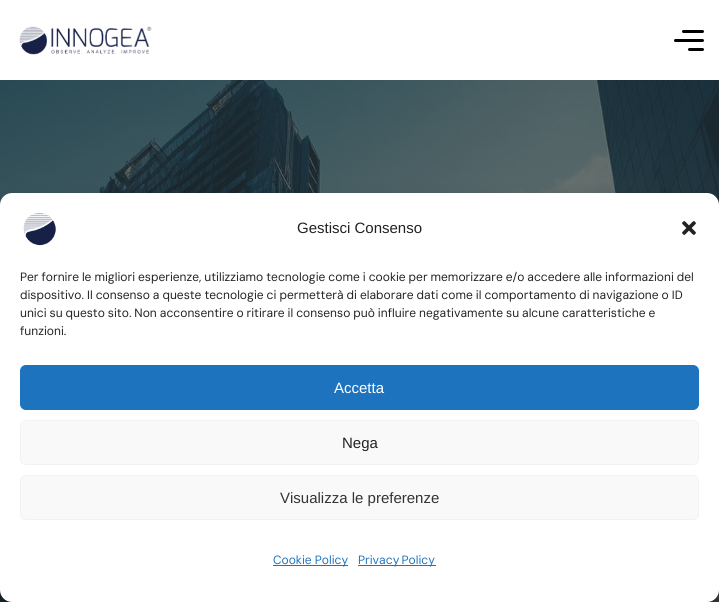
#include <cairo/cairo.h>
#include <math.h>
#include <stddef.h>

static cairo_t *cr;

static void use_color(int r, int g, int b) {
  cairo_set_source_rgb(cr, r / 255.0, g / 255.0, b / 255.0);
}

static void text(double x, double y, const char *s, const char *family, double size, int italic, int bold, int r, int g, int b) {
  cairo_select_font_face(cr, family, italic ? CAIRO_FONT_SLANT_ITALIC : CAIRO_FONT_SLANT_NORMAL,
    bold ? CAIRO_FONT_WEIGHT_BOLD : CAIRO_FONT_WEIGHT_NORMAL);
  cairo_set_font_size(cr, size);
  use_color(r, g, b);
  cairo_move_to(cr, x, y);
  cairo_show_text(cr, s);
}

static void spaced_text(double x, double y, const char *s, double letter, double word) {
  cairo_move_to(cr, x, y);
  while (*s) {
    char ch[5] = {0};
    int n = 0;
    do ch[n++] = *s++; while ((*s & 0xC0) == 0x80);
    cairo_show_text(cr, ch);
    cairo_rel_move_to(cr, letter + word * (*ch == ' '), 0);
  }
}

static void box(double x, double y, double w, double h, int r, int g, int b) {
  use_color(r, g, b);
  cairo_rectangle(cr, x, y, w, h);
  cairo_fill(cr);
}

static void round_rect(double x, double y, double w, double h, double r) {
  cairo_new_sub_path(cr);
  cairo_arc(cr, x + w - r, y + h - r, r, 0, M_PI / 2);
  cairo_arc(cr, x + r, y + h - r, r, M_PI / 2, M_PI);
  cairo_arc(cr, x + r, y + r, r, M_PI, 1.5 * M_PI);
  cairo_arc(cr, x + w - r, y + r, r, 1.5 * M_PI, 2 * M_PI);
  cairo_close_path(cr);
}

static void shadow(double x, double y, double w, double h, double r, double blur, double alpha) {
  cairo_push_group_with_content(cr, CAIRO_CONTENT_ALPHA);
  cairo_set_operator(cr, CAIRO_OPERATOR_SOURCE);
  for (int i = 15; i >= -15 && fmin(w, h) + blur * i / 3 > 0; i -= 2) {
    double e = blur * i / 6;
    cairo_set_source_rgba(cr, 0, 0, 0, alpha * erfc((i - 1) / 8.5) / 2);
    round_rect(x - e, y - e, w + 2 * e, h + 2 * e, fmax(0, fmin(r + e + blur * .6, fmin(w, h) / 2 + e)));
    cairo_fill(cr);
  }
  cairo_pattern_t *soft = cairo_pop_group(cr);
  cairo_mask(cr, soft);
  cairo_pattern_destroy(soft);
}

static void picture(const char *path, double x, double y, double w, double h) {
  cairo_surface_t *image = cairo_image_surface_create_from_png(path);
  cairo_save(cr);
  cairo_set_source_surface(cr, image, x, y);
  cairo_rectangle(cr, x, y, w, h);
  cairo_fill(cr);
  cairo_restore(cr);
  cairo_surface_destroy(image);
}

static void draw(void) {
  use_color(255, 255, 255);
  cairo_paint(cr);
  picture("img_01.png", 19, 26, 133, 29);
  use_color(0, 0, 0);
  round_rect(682, 30, 22, 3, 1.5);
  cairo_fill(cr);
  round_rect(674, 39, 30, 3, 1.5);
  cairo_fill(cr);
  round_rect(688, 48, 16, 3, 1.5);
  cairo_fill(cr);
  box(0, 80, 719, 522, 34, 48, 53);
  picture("img_02.png", 0, 80, 719, 522);
  use_color(0, 0, 0);
  shadow(0, 199, 719, 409, 12, 3, 0.23);
  shadow(0, 203, 719, 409, 12, 10, 0.19);
  use_color(255, 255, 255);
  round_rect(0, 193, 719, 409, 12);
  cairo_fill(cr);
  picture("img_03.png", 23, 213, 33, 33);
  picture("img_04.png", 682, 221, 14, 14);
  use_color(30, 115, 190);
  round_rect(20.5, 365.5, 678, 44, 5.5);
  cairo_fill_preserve(cr);
  cairo_set_line_width(cr, 1);
  cairo_stroke(cr);
  use_color(249, 249, 249);
  round_rect(20.5, 420.5, 678, 44, 5.5);
  cairo_fill_preserve(cr);
  use_color(242, 242, 242);
  cairo_stroke(cr);
  use_color(249, 249, 249);
  round_rect(20.5, 475.5, 678, 44, 5.5);
  cairo_fill_preserve(cr);
  use_color(242, 242, 242);
  cairo_stroke(cr);
  box(273, 565, 75, 1, 30, 115, 190);
  box(358, 565, 78, 1, 30, 115, 190);
  text(297, 233, "Gestisci Consenso", "Liberation Sans", 15, 0, 0, 34, 34, 34);
  cairo_select_font_face(cr, "DM Sans", CAIRO_FONT_SLANT_NORMAL, CAIRO_FONT_WEIGHT_NORMAL);
  cairo_set_font_size(cr, 12);
  spaced_text(20, 281, "Per fornire le migliori esperienze, utilizziamo tecnologie come i cookie per memorizzare e/o accedere alle informazioni del", 0, -0.25);
  spaced_text(20, 299, "dispositivo. Il consenso a queste tecnologie ci permetterà di elaborare dati come il comportamento di navigazione o ID", 0, -0.2);
  spaced_text(20, 317, "unici su questo sito. Non acconsentire o ritirare il consenso può influire negativamente su alcune caratteristiche e", 0, -0.25);
  text(20, 335, "funzioni.", "DM Sans", 12, 0, 0, 34, 34, 34);
  text(334, 393, "Accetta", "Liberation Sans", 15, 0, 0, 255, 255, 255);
  text(342, 448, "Nega", "Liberation Sans", 15, 0, 0, 34, 34, 34);
  text(280, 503, "Visualizza le preferenze", "Liberation Sans", 15, 0, 0, 51, 51, 51);
  text(273, 564, "Cookie Policy", "DM Sans", 12, 0, 0, 30, 115, 190);
  spaced_text(358, 564, "Privacy Policy", 0, -1);
}

int main(void) {
  cairo_surface_t *surface = cairo_image_surface_create(CAIRO_FORMAT_RGB24, 719, 602);
  cr = cairo_create(surface);
  cairo_font_options_t *options = cairo_font_options_create();
  cairo_font_options_set_hint_metrics(options, CAIRO_HINT_METRICS_OFF);
  cairo_font_options_set_hint_style(options, CAIRO_HINT_STYLE_NONE);
  cairo_set_font_options(cr, options);
  cairo_set_miter_limit(cr, 4);
  draw();
  cairo_surface_write_to_png(surface, "out.png");
  cairo_font_options_destroy(options);
  cairo_destroy(cr);
  cairo_surface_destroy(surface);
  return 0;
}
